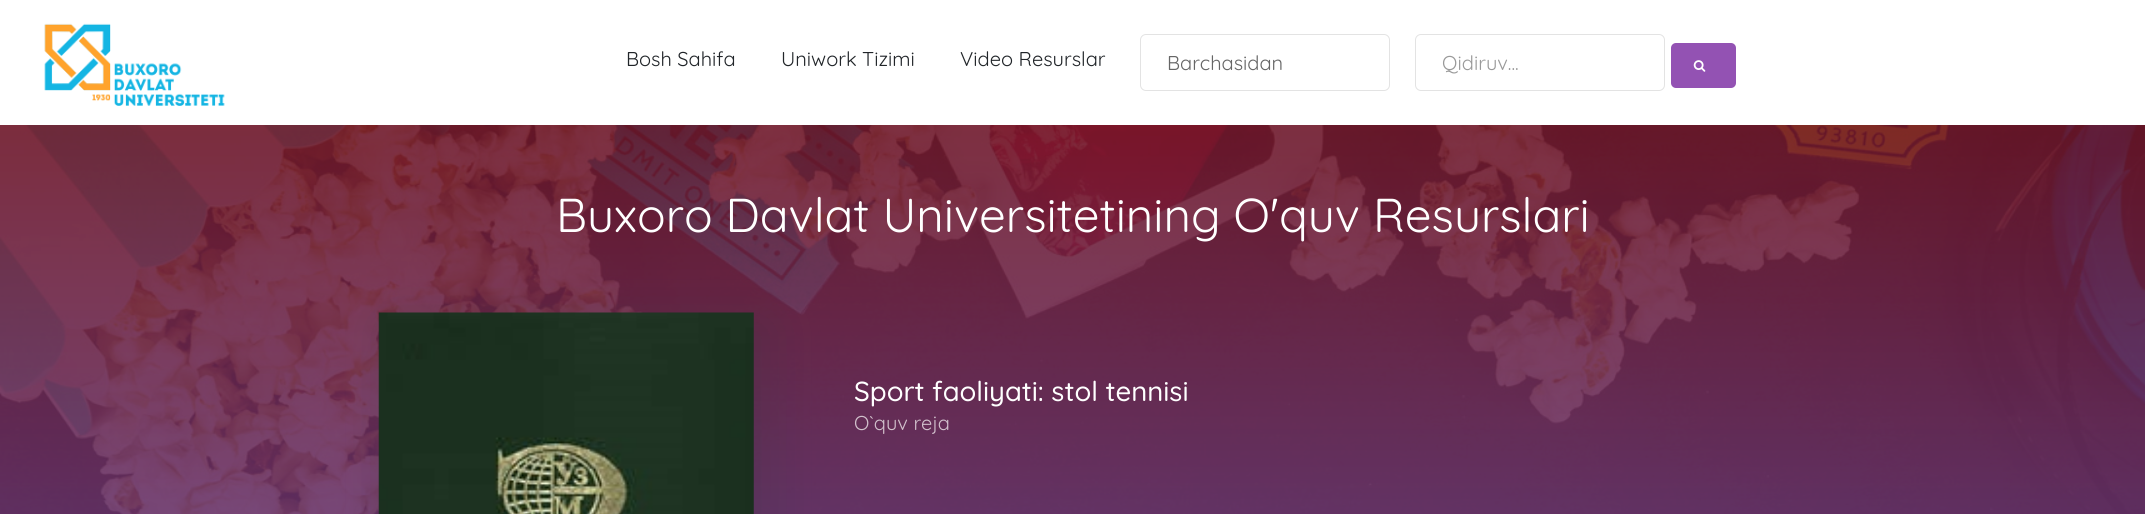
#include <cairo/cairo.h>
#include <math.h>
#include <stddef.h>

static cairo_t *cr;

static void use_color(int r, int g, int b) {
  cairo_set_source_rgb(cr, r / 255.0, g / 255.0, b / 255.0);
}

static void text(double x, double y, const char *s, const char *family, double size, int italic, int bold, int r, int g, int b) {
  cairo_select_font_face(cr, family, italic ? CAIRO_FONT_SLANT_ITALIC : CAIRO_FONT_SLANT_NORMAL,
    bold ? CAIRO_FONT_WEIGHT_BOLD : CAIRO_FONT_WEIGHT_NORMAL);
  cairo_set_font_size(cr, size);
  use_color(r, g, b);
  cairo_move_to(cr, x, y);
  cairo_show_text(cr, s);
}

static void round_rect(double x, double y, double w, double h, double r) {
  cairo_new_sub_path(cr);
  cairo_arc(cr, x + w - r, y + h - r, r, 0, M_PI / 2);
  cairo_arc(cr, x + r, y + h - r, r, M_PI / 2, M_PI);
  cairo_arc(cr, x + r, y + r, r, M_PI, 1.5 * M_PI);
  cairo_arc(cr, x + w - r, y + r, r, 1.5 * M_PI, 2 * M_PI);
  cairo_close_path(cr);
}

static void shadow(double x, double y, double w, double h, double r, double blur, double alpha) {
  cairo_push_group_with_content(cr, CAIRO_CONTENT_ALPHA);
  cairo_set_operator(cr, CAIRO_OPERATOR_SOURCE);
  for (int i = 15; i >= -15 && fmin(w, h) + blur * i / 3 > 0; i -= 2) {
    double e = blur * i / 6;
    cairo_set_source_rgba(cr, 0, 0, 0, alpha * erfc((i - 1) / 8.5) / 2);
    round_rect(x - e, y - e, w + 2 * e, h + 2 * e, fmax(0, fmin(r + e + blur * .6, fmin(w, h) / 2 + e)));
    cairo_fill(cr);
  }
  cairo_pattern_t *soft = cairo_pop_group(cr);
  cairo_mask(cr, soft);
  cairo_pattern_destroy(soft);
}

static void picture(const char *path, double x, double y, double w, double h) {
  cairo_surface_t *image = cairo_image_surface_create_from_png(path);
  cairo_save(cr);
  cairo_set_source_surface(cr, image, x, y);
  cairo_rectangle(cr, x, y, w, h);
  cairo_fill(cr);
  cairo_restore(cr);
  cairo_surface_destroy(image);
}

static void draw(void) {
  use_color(255, 255, 255);
  cairo_paint(cr);
  picture("img_01.png", 44, 23, 181, 83);
  round_rect(1140.5, 34.5, 249, 56, 5.5);
  use_color(227, 227, 227);
  cairo_set_line_width(cr, 1);
  cairo_stroke(cr);
  round_rect(1415.5, 34.5, 249, 56, 5.5);
  cairo_stroke(cr);
  use_color(147, 82, 179);
  round_rect(1671, 43, 65, 45, 5);
  cairo_fill(cr);
  picture("img_02.png", 1693, 60, 13, 12);
  picture("img_03.png", 0, 125, 2145, 389);
  use_color(52, 58, 64);
  shadow(391, 325, 375, 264, 0, 25, 0.25);
  picture("img_04.png", 378, 312, 376, 202);
  text(626, 66, "Bosh Sahifa", "Quicksand", 20, 0, 0, 33, 37, 41);
  text(781, 66, "Uniwork Tizimi", "Quicksand", 20, 0, 0, 33, 37, 41);
  text(960, 66, "Video Resurslar", "Quicksand", 20, 0, 0, 33, 37, 41);
  text(1167, 70, "Barchasidan", "Quicksand", 20, 0, 0, 102, 102, 102);
  text(1442, 70, "Qidiruv...", "Quicksand", 20, 0, 0, 153, 153, 153);
  text(556, 232, "Buxoro Davlat Universitetining O'quv Resurslari", "Quicksand", 47.5, 0, 0, 255, 255, 255);
  text(854, 401, "Sport faoliyati: stol tennisi", "Quicksand Medium", 27.5, 0, 0, 255, 255, 255);
  text(854, 430, "O`quv reja", "Quicksand", 20, 0, 0, 209, 192, 204);
}

int main(void) {
  cairo_surface_t *surface = cairo_image_surface_create(CAIRO_FORMAT_RGB24, 2145, 514);
  cr = cairo_create(surface);
  cairo_font_options_t *options = cairo_font_options_create();
  cairo_font_options_set_hint_metrics(options, CAIRO_HINT_METRICS_OFF);
  cairo_font_options_set_hint_style(options, CAIRO_HINT_STYLE_NONE);
  cairo_set_font_options(cr, options);
  cairo_set_miter_limit(cr, 4);
  draw();
  cairo_surface_write_to_png(surface, "out.png");
  cairo_font_options_destroy(options);
  cairo_destroy(cr);
  cairo_surface_destroy(surface);
  return 0;
}
